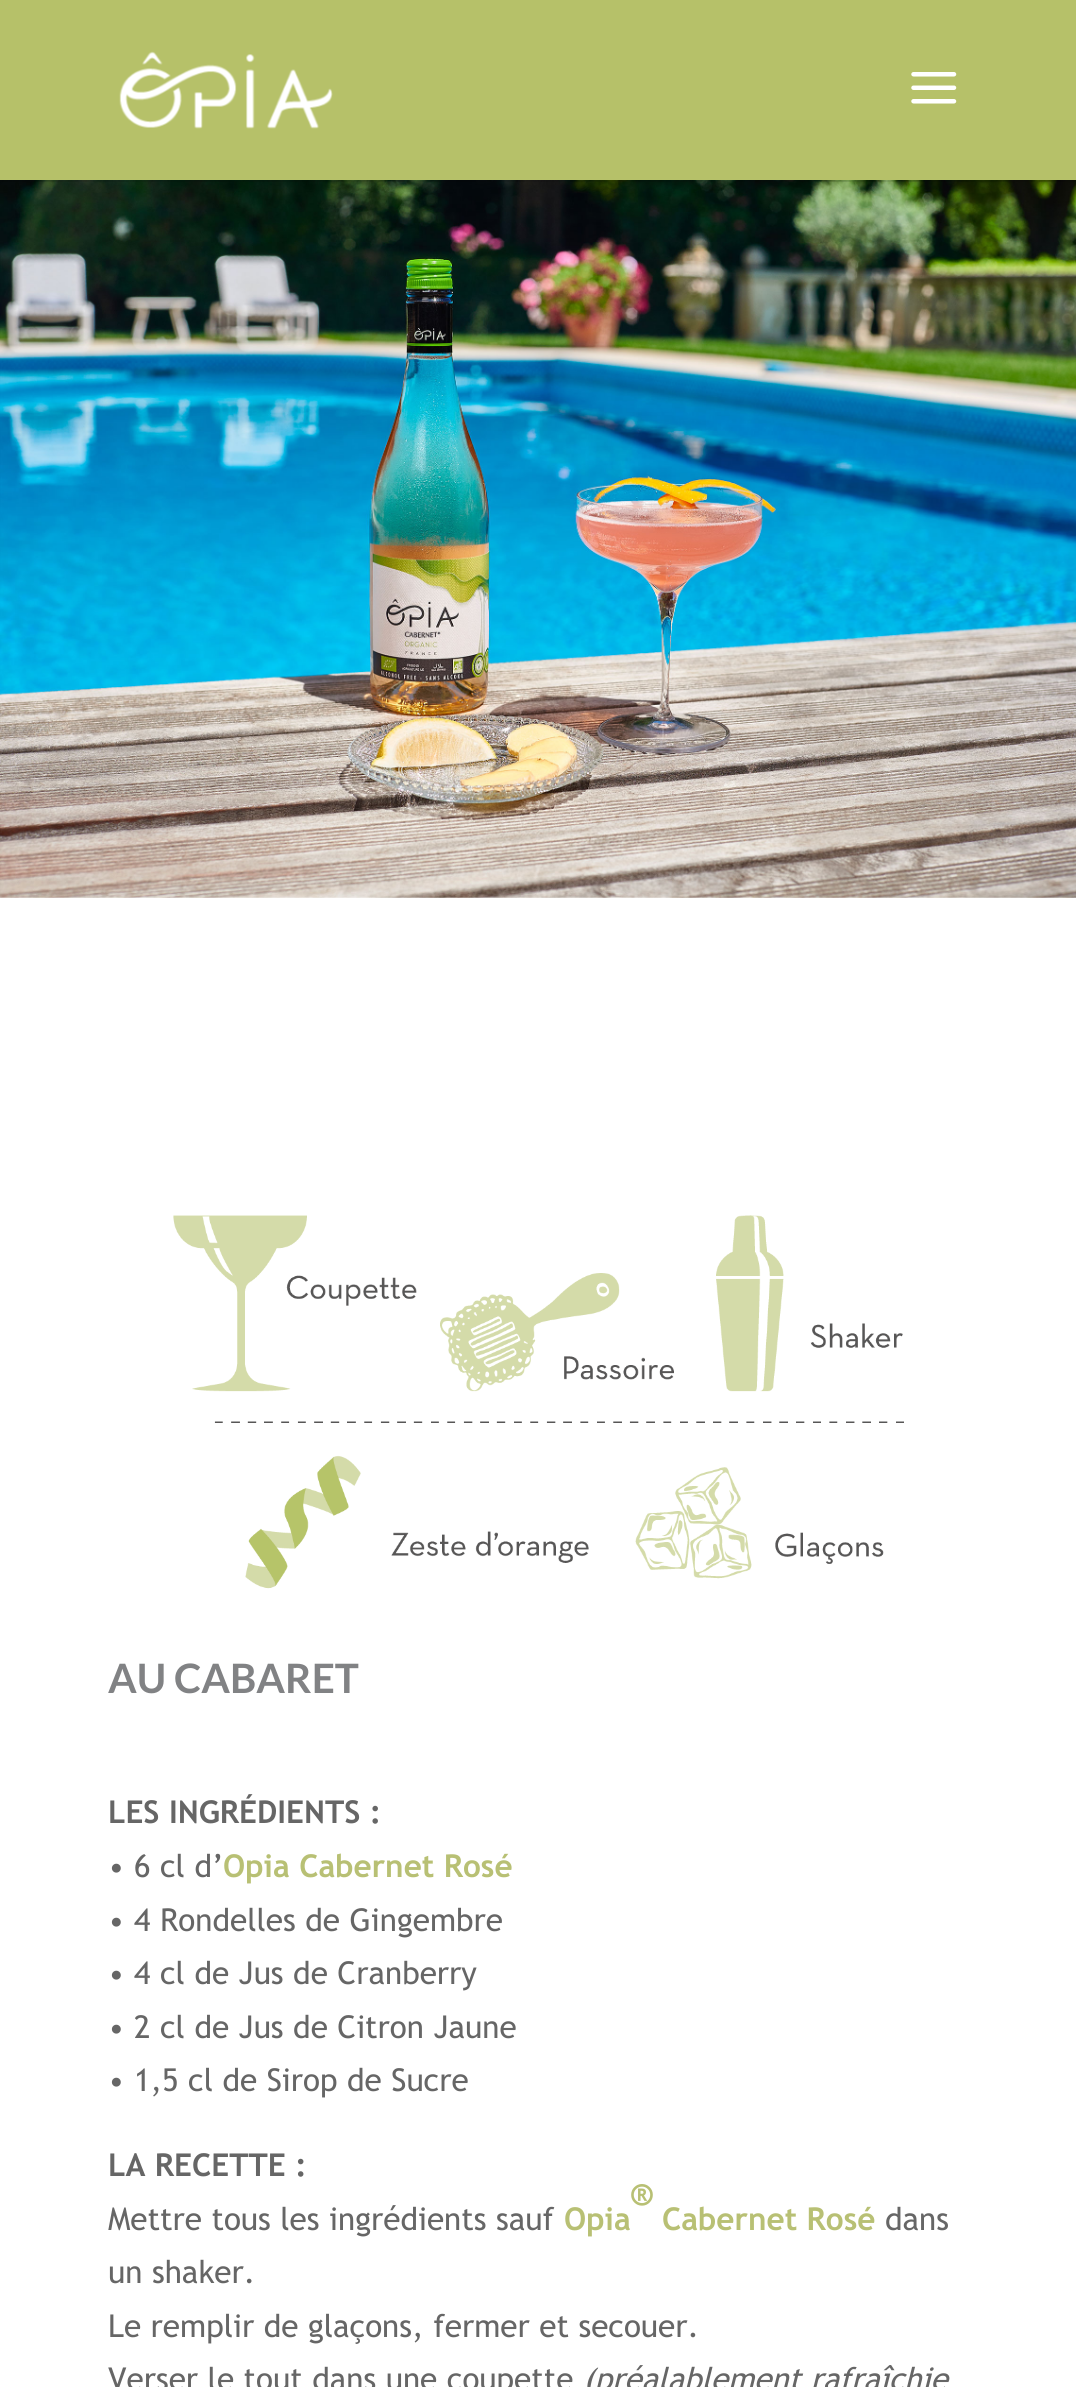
#include <cairo/cairo.h>
#include <math.h>
#include <stddef.h>

static cairo_t *cr;

static void use_color(int r, int g, int b) {
  cairo_set_source_rgb(cr, r / 255.0, g / 255.0, b / 255.0);
}

static void text(double x, double y, const char *s, const char *family, double size, int italic, int bold, int r, int g, int b) {
  cairo_select_font_face(cr, family, italic ? CAIRO_FONT_SLANT_ITALIC : CAIRO_FONT_SLANT_NORMAL,
    bold ? CAIRO_FONT_WEIGHT_BOLD : CAIRO_FONT_WEIGHT_NORMAL);
  cairo_set_font_size(cr, size);
  use_color(r, g, b);
  cairo_move_to(cr, x, y);
  cairo_show_text(cr, s);
}

static void box(double x, double y, double w, double h, int r, int g, int b) {
  use_color(r, g, b);
  cairo_rectangle(cr, x, y, w, h);
  cairo_fill(cr);
}

static void picture(const char *path, double x, double y, double w, double h) {
  cairo_surface_t *image = cairo_image_surface_create_from_png(path);
  cairo_save(cr);
  cairo_set_source_surface(cr, image, x, y);
  cairo_rectangle(cr, x, y, w, h);
  cairo_fill(cr);
  cairo_restore(cr);
  cairo_surface_destroy(image);
}

static void draw(void) {
  use_color(255, 255, 255);
  cairo_paint(cr);
  picture("img_03.png", 0, 180, 1076, 718);
  cairo_set_source_rgba(cr, 0, 0, 0, 0.1);
  cairo_new_path(cr);
  cairo_move_to(cr, 0, 180);
  cairo_line_to(cr, 0, 182);
  cairo_line_to(cr, 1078, 182);
  cairo_line_to(cr, 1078, 2);
  cairo_line_to(cr, 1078, 180);
  cairo_close_path(cr);
  cairo_fill(cr);
  box(0, 0, 1076, 180, 182, 193, 105);
  picture("img_01.png", 119, 51, 214, 78);
  picture("img_02.png", 911, 72, 46, 32);
  picture("img_04.png", 173, 1215, 731, 374);
  text(108, 1693, "AU CABARET", "Lato", 40.5, 0, 1, 129, 130, 132);
  text(108, 1823, "LES INGRÉDIENTS :", "Trebuchet MS", 31.5, 0, 1, 102, 102, 102);
  text(108, 1877, "• 6 cl d’", "Trebuchet MS", 31.5, 0, 0, 102, 102, 102);
  text(223, 1877, "Opia Cabernet Rosé", "Trebuchet MS", 31.5, 0, 1, 184, 192, 116);
  text(108, 1931, "• 4 Rondelles de Gingembre", "Trebuchet MS", 31.5, 0, 0, 102, 102, 102);
  text(108, 1984, "• 4 cl de Jus de Cranberry", "Trebuchet MS", 31.5, 0, 0, 102, 102, 102);
  text(108, 2038, "• 2 cl de Jus de Citron Jaune", "Trebuchet MS", 31.5, 0, 0, 102, 102, 102);
  text(108, 2091, "• 1,5 cl de Sirop de Sucre", "Trebuchet MS", 31.5, 0, 0, 102, 102, 102);
  text(108, 2176, "LA RECETTE :", "Trebuchet MS", 31.5, 0, 1, 102, 102, 102);
  text(630, 2205, "®", "Trebuchet MS", 31.5, 0, 1, 184, 192, 116);
  text(108, 2230, "Mettre tous les ingrédients sauf", "Trebuchet MS", 31.5, 0, 0, 102, 102, 102);
  text(564, 2230, "Opia", "Trebuchet MS", 31.5, 0, 1, 184, 192, 116);
  text(662, 2230, "Cabernet Rosé", "Trebuchet MS", 31.5, 0, 1, 184, 192, 116);
  text(885, 2230, "dans", "Trebuchet MS", 31.5, 0, 0, 102, 102, 102);
  text(108, 2283, "un shaker.", "Trebuchet MS", 31.5, 0, 0, 102, 102, 102);
  text(108, 2337, "Le remplir de glaçons, fermer et secouer.", "Trebuchet MS", 31.5, 0, 0, 102, 102, 102);
  text(108, 2390, "Verser le tout dans une coupette", "Trebuchet MS", 31.5, 0, 0, 102, 102, 102);
  text(583, 2390, "(préalablement rafraîchie", "Trebuchet MS", 31.5, 1, 0, 102, 102, 102);
}

int main(void) {
  cairo_surface_t *surface = cairo_image_surface_create(CAIRO_FORMAT_RGB24, 1076, 2387);
  cr = cairo_create(surface);
  cairo_font_options_t *options = cairo_font_options_create();
  cairo_font_options_set_hint_metrics(options, CAIRO_HINT_METRICS_OFF);
  cairo_font_options_set_hint_style(options, CAIRO_HINT_STYLE_NONE);
  cairo_set_font_options(cr, options);
  cairo_set_miter_limit(cr, 4);
  draw();
  cairo_surface_write_to_png(surface, "out.png");
  cairo_font_options_destroy(options);
  cairo_destroy(cr);
  cairo_surface_destroy(surface);
  return 0;
}
